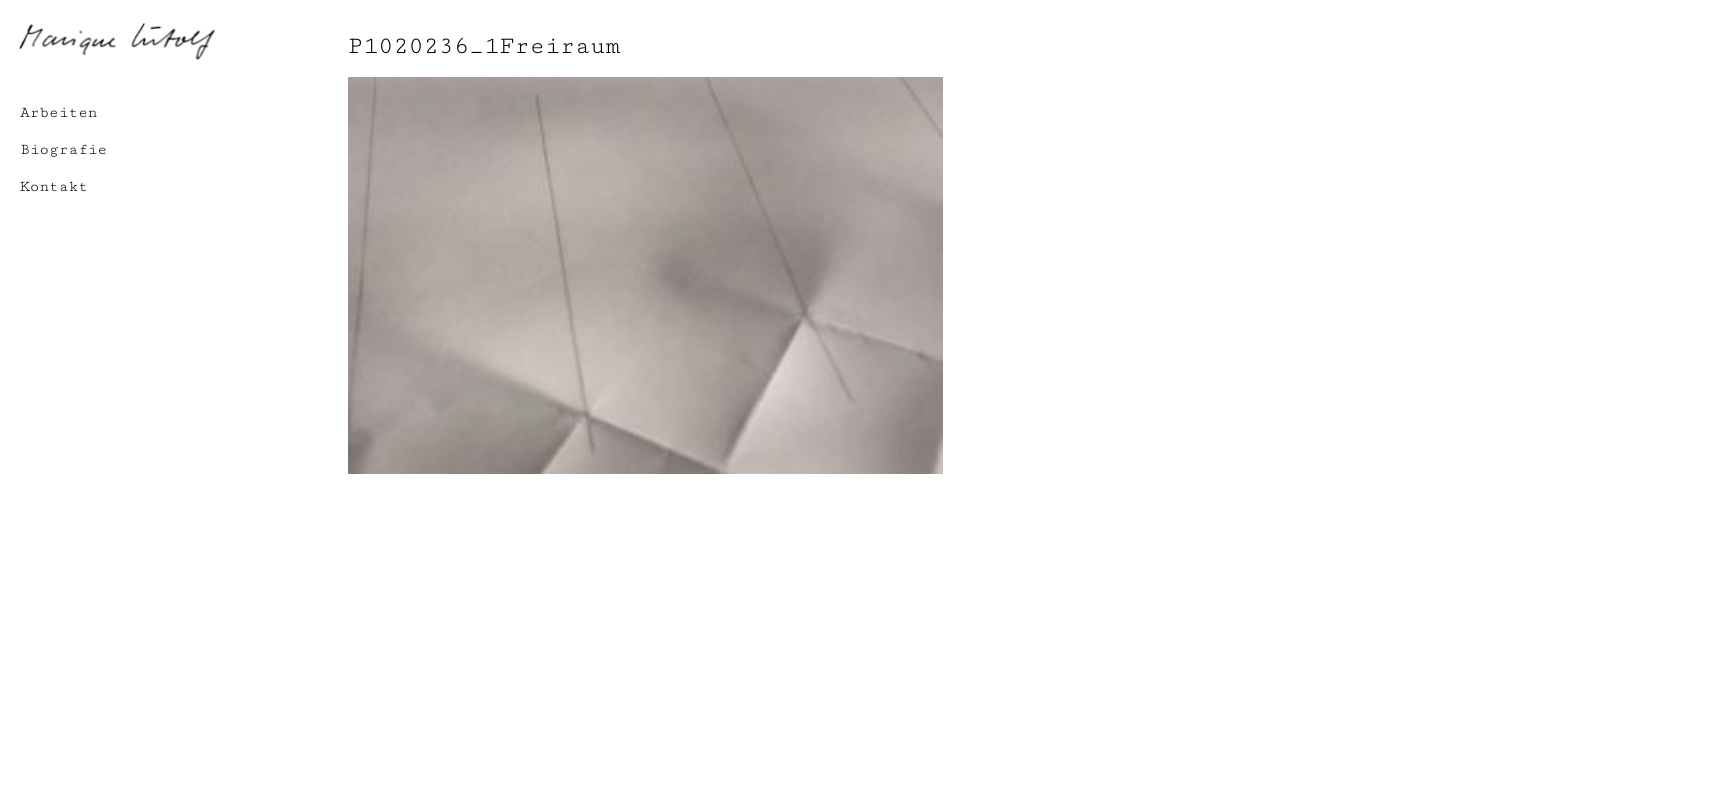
#include <cairo/cairo.h>
#include <math.h>
#include <stddef.h>

static cairo_t *cr;

static void use_color(int r, int g, int b) {
  cairo_set_source_rgb(cr, r / 255.0, g / 255.0, b / 255.0);
}

static void text(double x, double y, const char *s, const char *family, double size, int italic, int bold, int r, int g, int b) {
  cairo_select_font_face(cr, family, italic ? CAIRO_FONT_SLANT_ITALIC : CAIRO_FONT_SLANT_NORMAL,
    bold ? CAIRO_FONT_WEIGHT_BOLD : CAIRO_FONT_WEIGHT_NORMAL);
  cairo_set_font_size(cr, size);
  use_color(r, g, b);
  cairo_move_to(cr, x, y);
  cairo_show_text(cr, s);
}

static void picture(const char *path, double x, double y, double w, double h) {
  cairo_surface_t *image = cairo_image_surface_create_from_png(path);
  cairo_save(cr);
  cairo_set_source_surface(cr, image, x, y);
  cairo_rectangle(cr, x, y, w, h);
  cairo_fill(cr);
  cairo_restore(cr);
  cairo_surface_destroy(image);
}

static void draw(void) {
  use_color(255, 255, 255);
  cairo_paint(cr);
  picture("img_01.png", 348, 77, 595, 397);
  picture("img_02.png", 19, 23, 197, 37);
  text(348, 53, "P1020236_1Freiraum", "Cutive Mono", 25, 0, 0, 0, 0, 0);
  text(20, 117, "Arbeiten", "Cutive Mono", 16, 0, 0, 0, 0, 0);
  text(20, 154, "Biografie", "Cutive Mono", 16, 0, 0, 0, 0, 0);
  text(20, 191, "Kontakt", "Cutive Mono", 16, 0, 0, 0, 0, 0);
}

int main(void) {
  cairo_surface_t *surface = cairo_image_surface_create(CAIRO_FORMAT_RGB24, 1717, 786);
  cr = cairo_create(surface);
  cairo_font_options_t *options = cairo_font_options_create();
  cairo_font_options_set_hint_metrics(options, CAIRO_HINT_METRICS_OFF);
  cairo_font_options_set_hint_style(options, CAIRO_HINT_STYLE_NONE);
  cairo_set_font_options(cr, options);
  cairo_set_miter_limit(cr, 4);
  draw();
  cairo_surface_write_to_png(surface, "out.png");
  cairo_font_options_destroy(options);
  cairo_destroy(cr);
  cairo_surface_destroy(surface);
  return 0;
}
